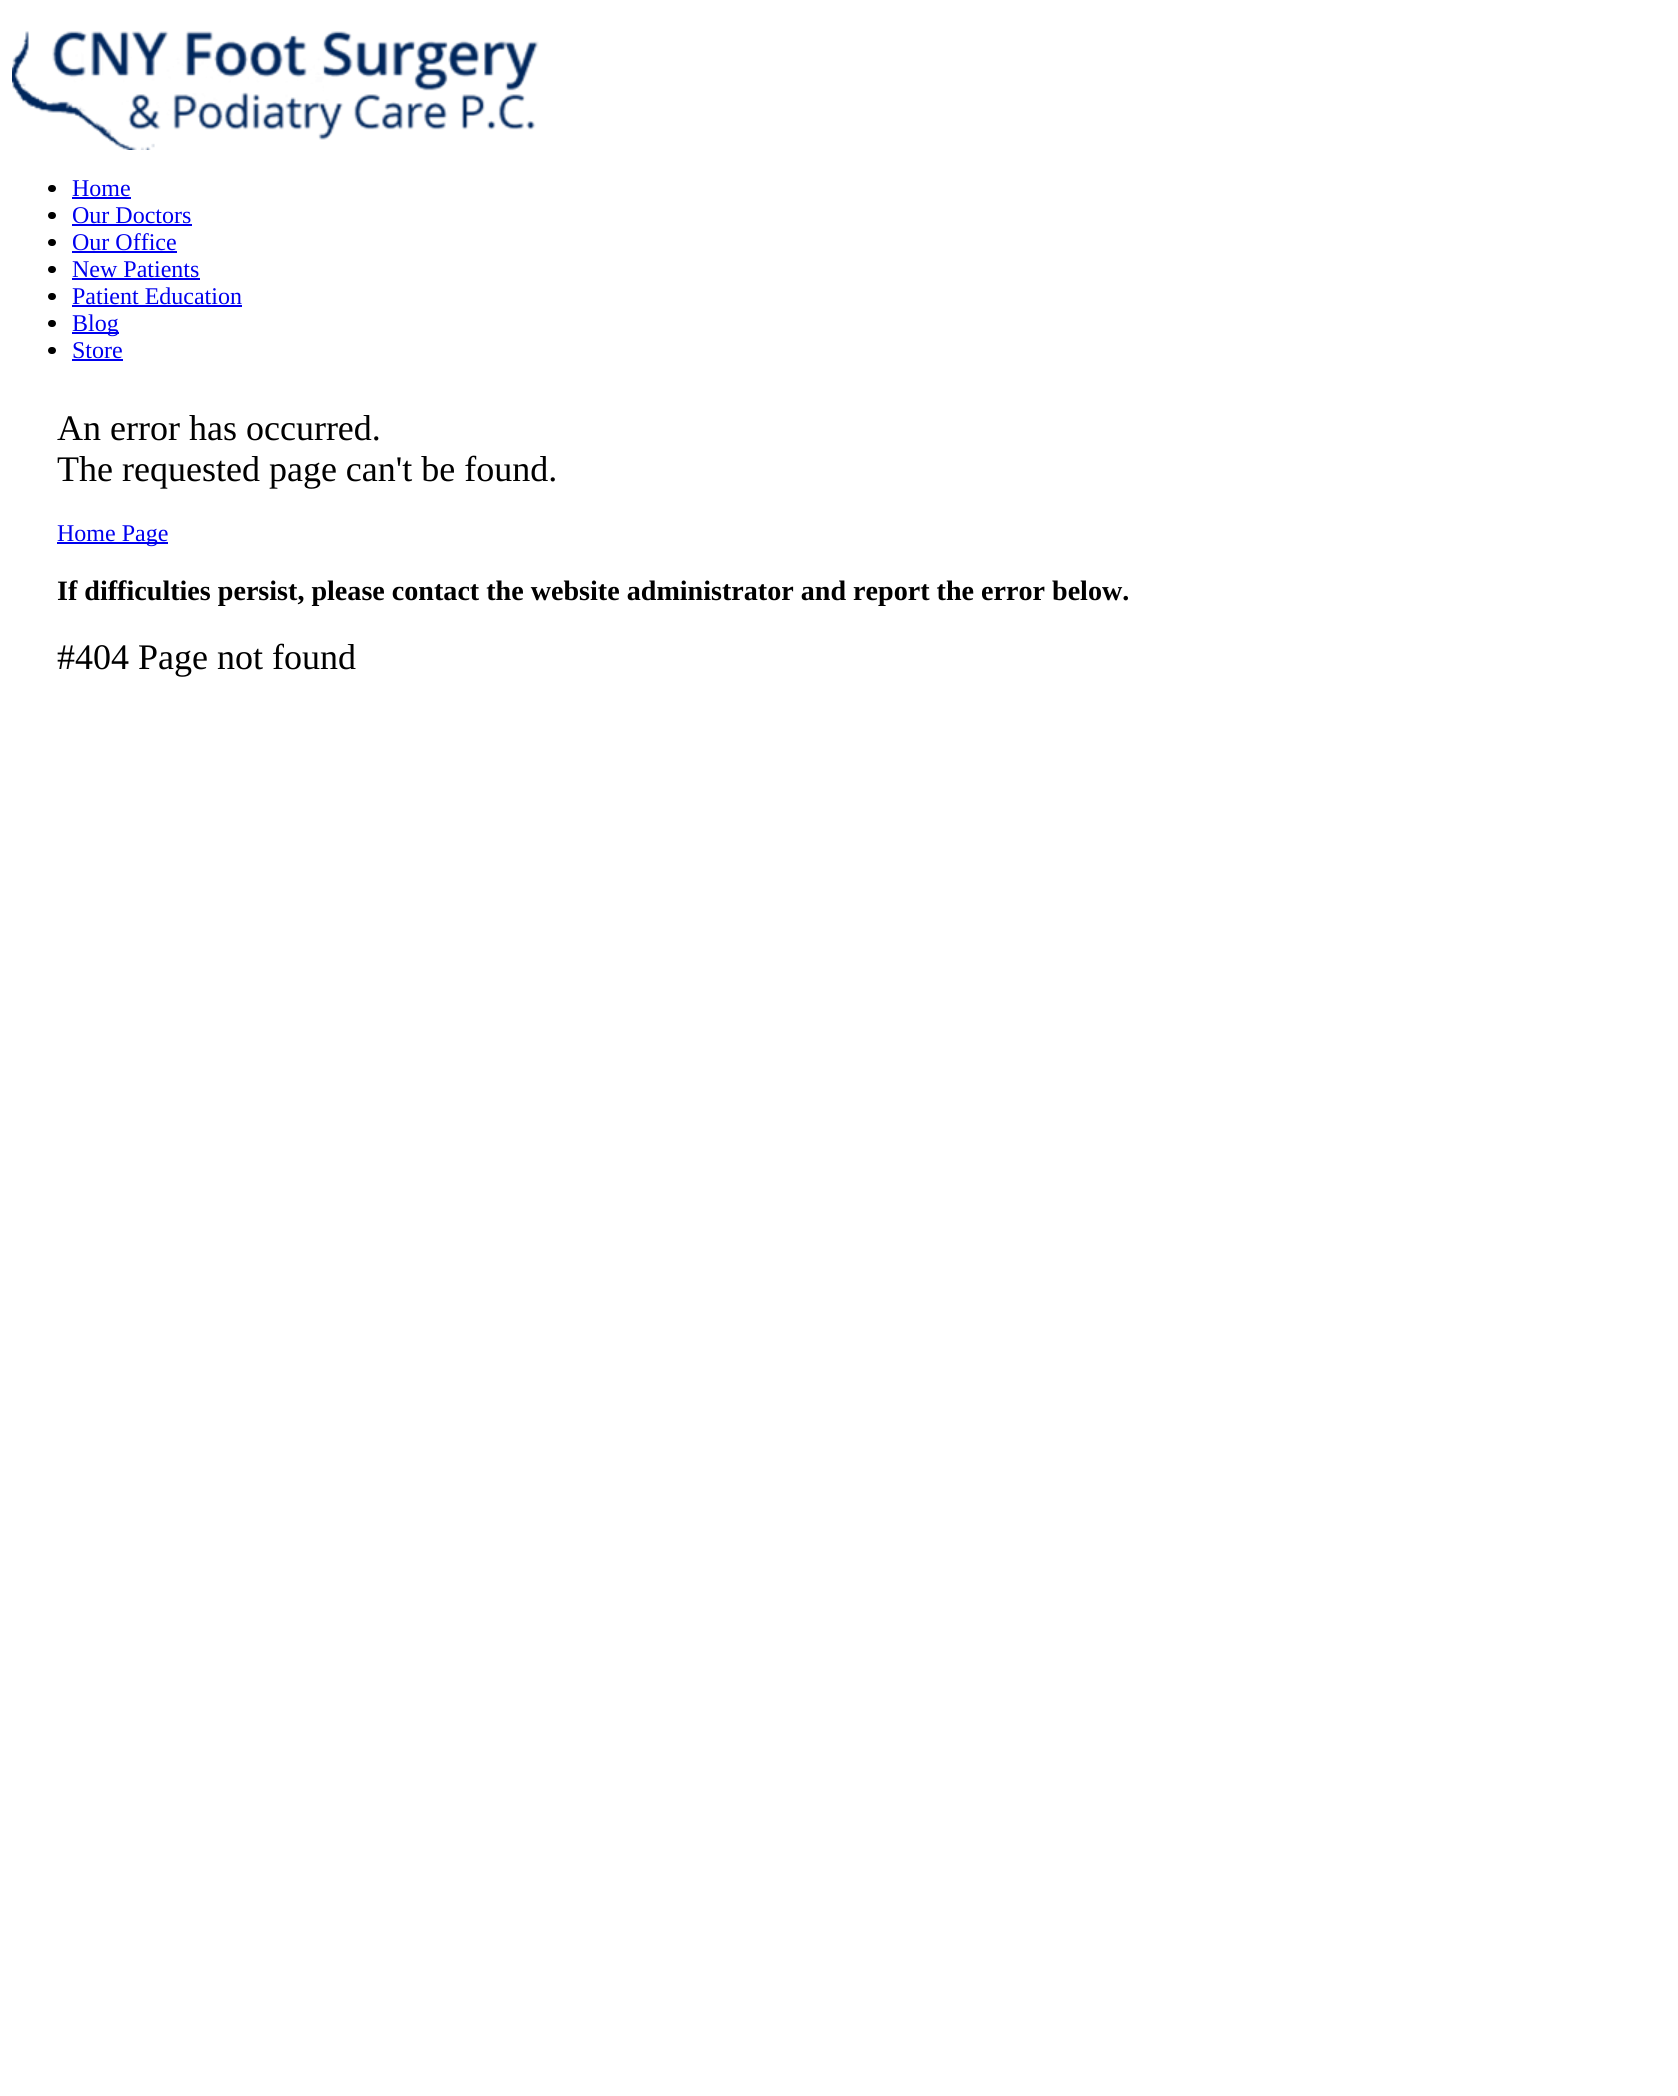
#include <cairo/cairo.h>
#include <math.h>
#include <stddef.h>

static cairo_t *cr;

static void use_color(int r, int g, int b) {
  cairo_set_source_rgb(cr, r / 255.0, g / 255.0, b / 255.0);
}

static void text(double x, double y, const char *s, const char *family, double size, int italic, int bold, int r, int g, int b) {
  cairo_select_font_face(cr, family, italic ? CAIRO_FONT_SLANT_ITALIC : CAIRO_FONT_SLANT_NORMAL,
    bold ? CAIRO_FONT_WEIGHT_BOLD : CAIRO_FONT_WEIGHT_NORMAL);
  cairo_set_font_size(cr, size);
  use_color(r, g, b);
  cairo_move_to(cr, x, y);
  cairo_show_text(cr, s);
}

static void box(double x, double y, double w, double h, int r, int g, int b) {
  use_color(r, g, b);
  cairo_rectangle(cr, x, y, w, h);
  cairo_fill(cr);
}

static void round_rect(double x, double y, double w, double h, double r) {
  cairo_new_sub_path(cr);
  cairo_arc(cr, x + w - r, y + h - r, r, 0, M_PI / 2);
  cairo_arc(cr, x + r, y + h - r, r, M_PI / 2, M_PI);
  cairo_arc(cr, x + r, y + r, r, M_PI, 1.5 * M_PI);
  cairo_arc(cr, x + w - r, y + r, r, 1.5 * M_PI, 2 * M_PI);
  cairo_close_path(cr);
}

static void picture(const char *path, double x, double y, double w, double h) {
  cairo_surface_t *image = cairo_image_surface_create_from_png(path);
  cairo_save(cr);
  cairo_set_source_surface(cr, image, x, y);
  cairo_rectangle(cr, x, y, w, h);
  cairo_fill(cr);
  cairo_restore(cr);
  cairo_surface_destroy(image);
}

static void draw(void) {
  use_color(255, 255, 255);
  cairo_paint(cr);
  picture("img_01.png", 12, 31, 527, 119);
  use_color(0, 0, 0);
  round_rect(48, 185, 8, 7, 3.5);
  cairo_fill(cr);
  box(72, 197, 59, 2, 0, 0, 238);
  use_color(0, 0, 0);
  round_rect(48, 212, 8, 7, 3.5);
  cairo_fill(cr);
  box(72, 224, 120, 2, 0, 0, 238);
  use_color(0, 0, 0);
  round_rect(48, 239, 8, 7, 3.5);
  cairo_fill(cr);
  box(72, 251, 105, 2, 0, 0, 238);
  use_color(0, 0, 0);
  round_rect(48, 266, 8, 7, 3.5);
  cairo_fill(cr);
  box(72, 278, 128, 2, 0, 0, 238);
  use_color(0, 0, 0);
  round_rect(48, 293, 8, 7, 3.5);
  cairo_fill(cr);
  box(72, 305, 170, 2, 0, 0, 238);
  use_color(0, 0, 0);
  round_rect(48, 320, 8, 7, 3.5);
  cairo_fill(cr);
  box(72, 332, 47, 2, 0, 0, 238);
  use_color(0, 0, 0);
  round_rect(48, 347, 8, 7, 3.5);
  cairo_fill(cr);
  box(72, 359, 51, 2, 0, 0, 238);
  box(57, 542, 111, 2, 0, 0, 238);
  text(72, 196, "Home", "Liberation Serif", 24, 0, 0, 0, 0, 238);
  text(72, 223, "Our Doctors", "Liberation Serif", 24, 0, 0, 0, 0, 238);
  text(72, 250, "Our Office", "Liberation Serif", 24, 0, 0, 0, 0, 238);
  text(72, 277, "New Patients", "Liberation Serif", 24, 0, 0, 0, 0, 238);
  text(72, 304, "Patient Education", "Liberation Serif", 24, 0, 0, 0, 0, 238);
  text(72, 331, "Blog", "Liberation Serif", 24, 0, 0, 0, 0, 238);
  text(72, 358, "Store", "Liberation Serif", 24, 0, 0, 0, 0, 238);
  text(57, 440, "An error has occurred.", "Liberation Serif", 36, 0, 0, 0, 0, 0);
  text(57, 481, "The requested page can't be found.", "Liberation Serif", 36, 0, 0, 0, 0, 0);
  text(57, 541, "Home Page", "Liberation Serif", 24, 0, 0, 0, 0, 238);
  text(57, 600, "If difficulties persist, please contact the website administrator and report the error below.", "Liberation Serif", 28.1, 0, 1, 0, 0, 0);
  text(57, 669, "#404 Page not found", "Liberation Serif", 36, 0, 0, 0, 0, 0);
}

int main(void) {
  cairo_surface_t *surface = cairo_image_surface_create(CAIRO_FORMAT_RGB24, 1678, 2096);
  cr = cairo_create(surface);
  cairo_font_options_t *options = cairo_font_options_create();
  cairo_font_options_set_hint_metrics(options, CAIRO_HINT_METRICS_OFF);
  cairo_font_options_set_hint_style(options, CAIRO_HINT_STYLE_NONE);
  cairo_set_font_options(cr, options);
  cairo_set_miter_limit(cr, 4);
  draw();
  cairo_surface_write_to_png(surface, "out.png");
  cairo_font_options_destroy(options);
  cairo_destroy(cr);
  cairo_surface_destroy(surface);
  return 0;
}
